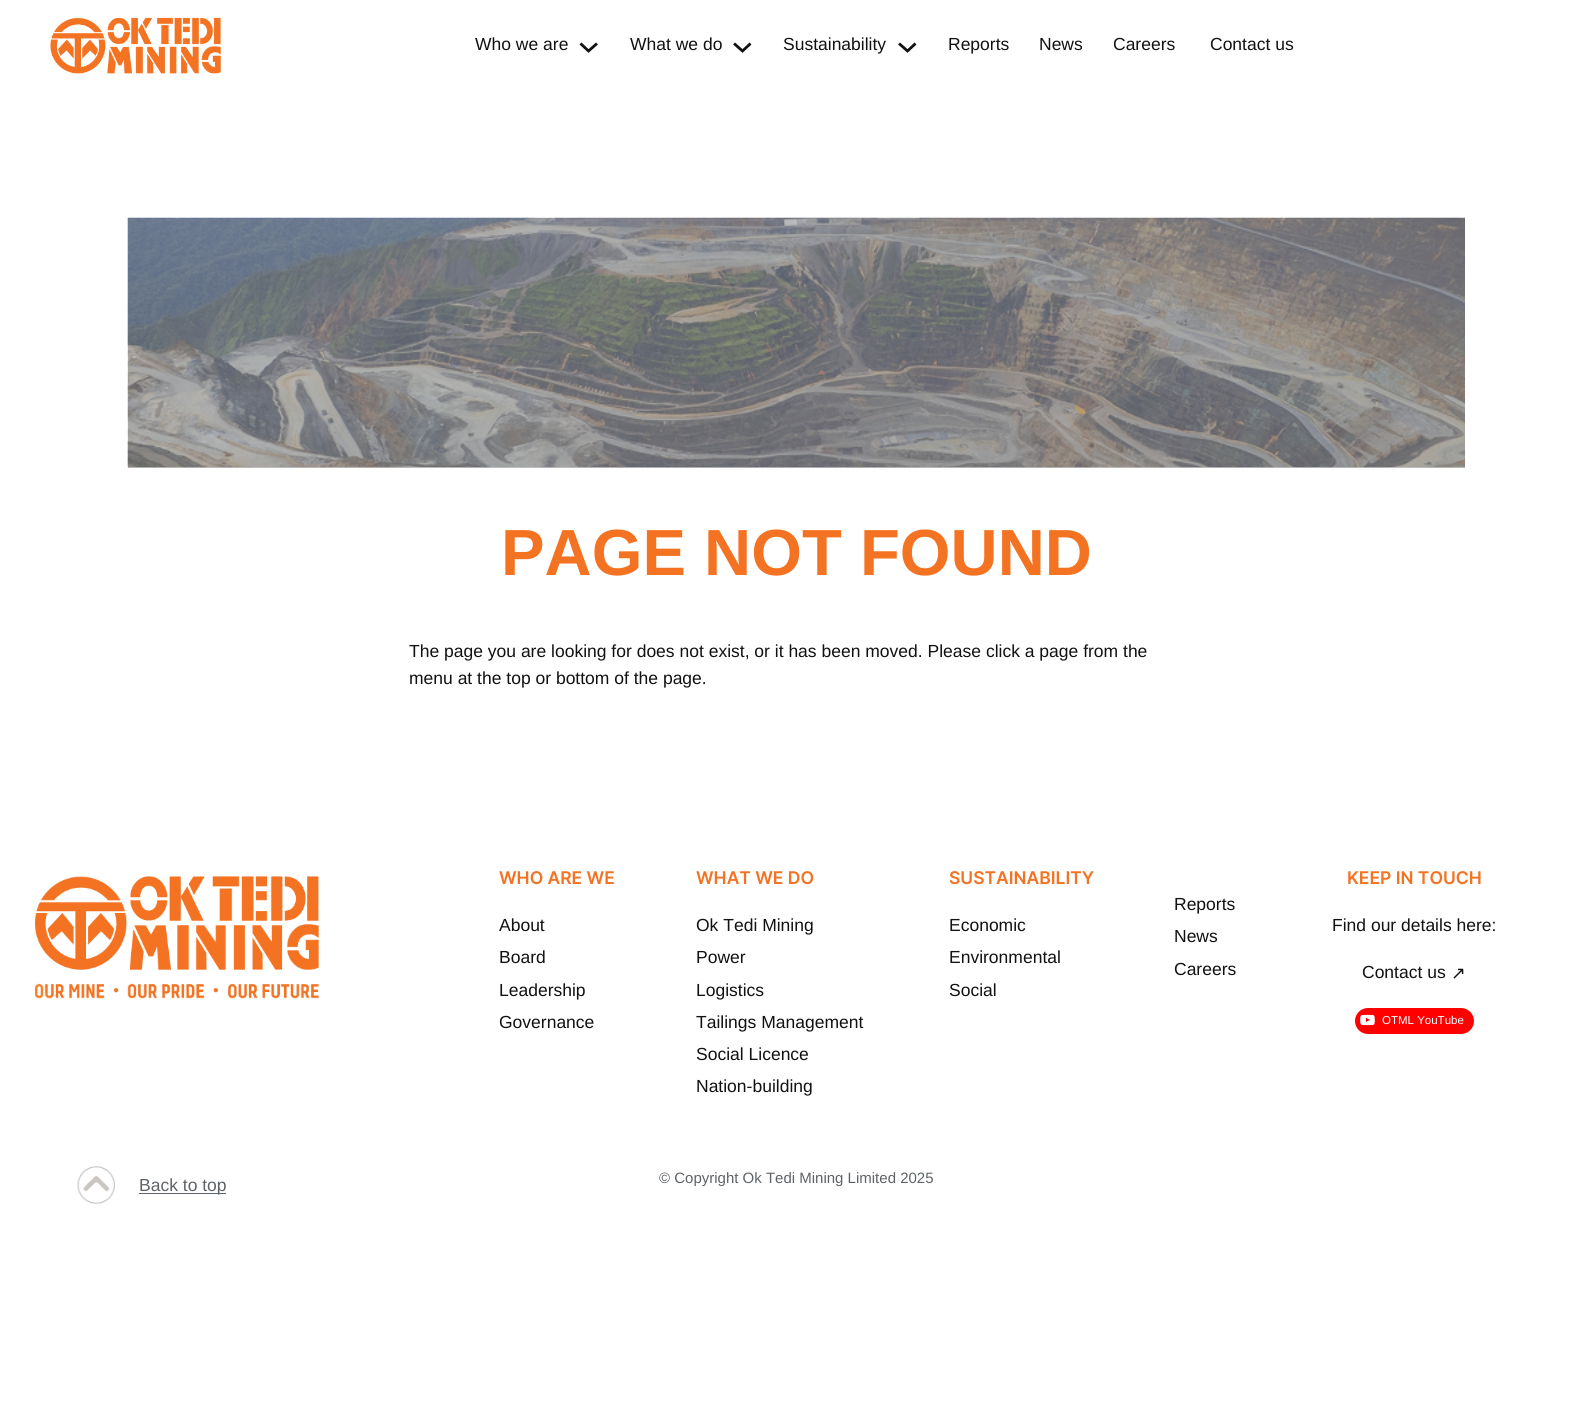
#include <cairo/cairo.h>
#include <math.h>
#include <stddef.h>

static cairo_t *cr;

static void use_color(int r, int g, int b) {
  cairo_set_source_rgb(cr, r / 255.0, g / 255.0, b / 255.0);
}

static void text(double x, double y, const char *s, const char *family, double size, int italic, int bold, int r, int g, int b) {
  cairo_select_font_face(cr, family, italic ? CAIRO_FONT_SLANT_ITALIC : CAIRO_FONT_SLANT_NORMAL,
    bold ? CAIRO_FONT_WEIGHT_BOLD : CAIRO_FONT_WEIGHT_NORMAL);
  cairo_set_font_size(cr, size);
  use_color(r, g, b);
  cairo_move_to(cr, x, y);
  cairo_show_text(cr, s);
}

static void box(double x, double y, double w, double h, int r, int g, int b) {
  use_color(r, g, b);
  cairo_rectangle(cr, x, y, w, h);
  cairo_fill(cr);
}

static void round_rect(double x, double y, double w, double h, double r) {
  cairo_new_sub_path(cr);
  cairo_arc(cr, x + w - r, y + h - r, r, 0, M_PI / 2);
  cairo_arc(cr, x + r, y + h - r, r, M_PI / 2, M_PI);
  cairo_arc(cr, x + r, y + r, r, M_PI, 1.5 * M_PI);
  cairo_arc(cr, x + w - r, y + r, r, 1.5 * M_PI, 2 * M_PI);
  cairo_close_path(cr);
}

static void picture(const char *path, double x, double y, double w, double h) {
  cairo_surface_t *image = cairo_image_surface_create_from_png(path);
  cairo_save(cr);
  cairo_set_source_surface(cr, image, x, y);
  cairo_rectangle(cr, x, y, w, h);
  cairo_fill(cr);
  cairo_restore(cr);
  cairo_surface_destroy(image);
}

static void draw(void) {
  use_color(255, 255, 255);
  cairo_paint(cr);
  box(128, 467, 1337, 1, 196, 197, 198);
  picture("img_01.png", 50, 17, 171, 57);
  cairo_new_path(cr);
  cairo_move_to(cr, 580.5, 43.5);
  cairo_line_to(cr, 588.5, 51);
  cairo_line_to(cr, 597, 43.5);
  use_color(17, 17, 17);
  cairo_set_line_width(cr, 2.8);
  cairo_stroke(cr);
  cairo_new_path(cr);
  cairo_move_to(cr, 734, 43.5);
  cairo_line_to(cr, 742.5, 51);
  cairo_line_to(cr, 750.5, 43.5);
  cairo_stroke(cr);
  cairo_new_path(cr);
  cairo_move_to(cr, 899, 43.5);
  cairo_line_to(cr, 907.5, 51);
  cairo_line_to(cr, 915.5, 43.5);
  cairo_stroke(cr);
  picture("img_02.png", 127, 217, 1338, 251);
  picture("img_03.png", 35, 876, 284, 123);
  use_color(255, 0, 0);
  round_rect(1355, 1008, 119, 26, 13);
  cairo_fill(cr);
  picture("img_04.png", 1360, 1014, 15, 12);
  picture("img_05.png", 77, 1166, 38, 38);
  box(139, 1193, 87, 1, 94, 99, 103);
  text(475, 50, "Who we are", "Liberation Sans", 17.5, 0, 0, 17, 17, 17);
  text(630, 50, "What we do", "Liberation Sans", 17.5, 0, 0, 17, 17, 17);
  text(783, 50, "Sustainability", "Liberation Sans", 17.5, 0, 0, 17, 17, 17);
  text(948, 50, "Reports", "Liberation Sans", 17.5, 0, 0, 17, 17, 17);
  text(1039, 50, "News", "Liberation Sans", 17.5, 0, 0, 17, 17, 17);
  text(1113, 50, "Careers", "Liberation Sans", 17.5, 0, 0, 17, 17, 17);
  text(1210, 50, "Contact us", "Liberation Sans", 17.5, 0, 0, 17, 17, 17);
  text(501, 575, "PAGE NOT FOUND", "Liberation Sans", 65.25, 0, 1, 243, 115, 35);
  text(409, 657, "The page you are looking for does not exist, or it has been moved. Please click a page from the", "Liberation Sans", 17.5, 0, 0, 17, 17, 17);
  text(409, 684, "menu at the top or bottom of the page.", "Liberation Sans", 17.5, 0, 0, 17, 17, 17);
  text(499, 884, "WHO ARE WE", "Inter SemiBold", 17.5, 0, 0, 243, 115, 35);
  text(499, 931, "About", "Liberation Sans", 17.5, 0, 0, 17, 17, 17);
  text(499, 963, "Board", "Liberation Sans", 17.5, 0, 0, 17, 17, 17);
  text(499, 996, "Leadership", "Liberation Sans", 17.5, 0, 0, 17, 17, 17);
  text(499, 1028, "Governance", "Liberation Sans", 17.5, 0, 0, 17, 17, 17);
  text(696, 884, "WHAT WE DO", "Inter SemiBold", 17.5, 0, 0, 243, 115, 35);
  text(696, 931, "Ok Tedi Mining", "Liberation Sans", 17.5, 0, 0, 17, 17, 17);
  text(696, 963, "Power", "Liberation Sans", 17.5, 0, 0, 17, 17, 17);
  text(696, 996, "Logistics", "Liberation Sans", 17.5, 0, 0, 17, 17, 17);
  text(696, 1028, "Tailings Management", "Liberation Sans", 17.5, 0, 0, 17, 17, 17);
  text(696, 1060, "Social Licence", "Liberation Sans", 17.5, 0, 0, 17, 17, 17);
  text(696, 1092, "Nation-building", "Liberation Sans", 17.5, 0, 0, 17, 17, 17);
  text(949, 884, "SUSTAINABILITY", "Inter SemiBold", 17.5, 0, 0, 243, 115, 35);
  text(949, 931, "Economic", "Liberation Sans", 17.5, 0, 0, 17, 17, 17);
  text(949, 963, "Environmental", "Liberation Sans", 17.5, 0, 0, 17, 17, 17);
  text(949, 996, "Social", "Liberation Sans", 17.5, 0, 0, 17, 17, 17);
  text(1174, 910, "Reports", "Liberation Sans", 17.5, 0, 0, 17, 17, 17);
  text(1174, 942, "News", "Liberation Sans", 17.5, 0, 0, 17, 17, 17);
  text(1174, 975, "Careers", "Liberation Sans", 17.5, 0, 0, 17, 17, 17);
  text(1347, 884, "KEEP IN TOUCH", "Inter SemiBold", 17.5, 0, 0, 243, 115, 35);
  text(1332, 931, "Find our details here:", "Liberation Sans", 17.5, 0, 0, 17, 17, 17);
  text(1362, 978, "Contact us", "Liberation Sans", 17.5, 0, 0, 17, 17, 17);
  text(1451, 979, "↗", "DejaVu Sans", 17.5, 0, 0, 17, 17, 17);
  text(1382, 1024, "OTML YouTube", "Liberation Sans", 11.5, 0, 0, 255, 255, 255);
  text(139, 1191, "Back to top", "Liberation Sans", 17.5, 0, 0, 94, 99, 103);
  text(659, 1183, "© Copyright Ok Tedi Mining Limited 2025", "Liberation Sans", 15, 0, 0, 94, 99, 103);
}

int main(void) {
  cairo_surface_t *surface = cairo_image_surface_create(CAIRO_FORMAT_RGB24, 1592, 1404);
  cr = cairo_create(surface);
  cairo_font_options_t *options = cairo_font_options_create();
  cairo_font_options_set_hint_metrics(options, CAIRO_HINT_METRICS_OFF);
  cairo_font_options_set_hint_style(options, CAIRO_HINT_STYLE_NONE);
  cairo_set_font_options(cr, options);
  cairo_set_miter_limit(cr, 4);
  draw();
  cairo_surface_write_to_png(surface, "out.png");
  cairo_font_options_destroy(options);
  cairo_destroy(cr);
  cairo_surface_destroy(surface);
  return 0;
}
